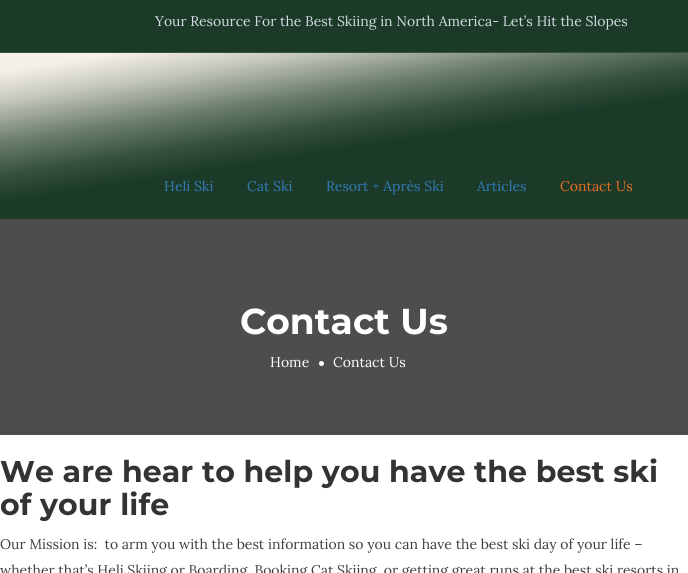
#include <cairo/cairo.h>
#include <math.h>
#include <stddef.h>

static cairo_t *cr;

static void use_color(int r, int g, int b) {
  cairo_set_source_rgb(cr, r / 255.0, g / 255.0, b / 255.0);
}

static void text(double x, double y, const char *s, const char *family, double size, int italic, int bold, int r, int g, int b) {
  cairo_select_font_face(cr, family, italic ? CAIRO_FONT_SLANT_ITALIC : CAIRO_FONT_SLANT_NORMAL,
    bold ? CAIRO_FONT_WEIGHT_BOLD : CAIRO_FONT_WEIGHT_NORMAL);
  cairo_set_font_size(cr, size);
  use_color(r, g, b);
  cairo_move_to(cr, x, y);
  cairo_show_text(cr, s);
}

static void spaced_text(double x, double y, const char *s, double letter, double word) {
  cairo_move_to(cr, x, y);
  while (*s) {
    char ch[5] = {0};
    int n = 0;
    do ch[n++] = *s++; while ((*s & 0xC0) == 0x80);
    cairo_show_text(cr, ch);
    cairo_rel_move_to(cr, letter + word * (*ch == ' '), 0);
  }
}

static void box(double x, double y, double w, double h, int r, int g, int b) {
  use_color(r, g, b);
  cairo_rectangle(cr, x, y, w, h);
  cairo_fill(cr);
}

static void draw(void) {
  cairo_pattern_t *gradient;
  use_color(255, 255, 255);
  cairo_paint(cr);
  box(0, 0, 688, 52, 27, 58, 40);
  box(0, 52, 688, 1, 54, 81, 64);
  gradient = cairo_pattern_create_linear(365, 270, 323, 1.9);
  cairo_pattern_add_color_stop_rgba(gradient, 0.41, 0.106, 0.227, 0.157, 1);
  cairo_pattern_add_color_stop_rgba(gradient, 0.45, 0.106, 0.227, 0.157, 1);
  cairo_pattern_add_color_stop_rgba(gradient, 0.55, 0.208, 0.314, 0.247, 1);
  cairo_pattern_add_color_stop_rgba(gradient, 0.67, 0.416, 0.486, 0.427, 1);
  cairo_pattern_add_color_stop_rgba(gradient, 0.82, 0.769, 0.78, 0.733, 1);
  cairo_pattern_add_color_stop_rgba(gradient, 0.93, 0.961, 0.941, 0.902, 1);
  cairo_set_source(cr, gradient);
  cairo_pattern_destroy(gradient);
  cairo_rectangle(cr, 0, 53, 688, 166);
  cairo_fill(cr);
  box(0, 219, 688, 216, 77, 77, 77);
  use_color(255, 255, 255);
  cairo_arc(cr, 321.5, 363.5, 2.5, 0, 2 * M_PI);
  cairo_fill(cr);
  text(155, 26, "Your Resource For the Best Skiing in North America- Let’s Hit the Slopes", "Lora", 14, 0, 0, 210, 218, 226);
  text(164, 191, "Heli Ski", "Lora", 14, 0, 0, 51, 122, 183);
  text(247, 191, "Cat Ski", "Lora", 14, 0, 0, 51, 122, 183);
  text(326, 191, "Resort + Après Ski", "Lora", 14, 0, 0, 51, 122, 183);
  text(477, 191, "Articles", "Lora", 14, 0, 0, 51, 122, 183);
  text(560, 191, "Contact Us", "Lora", 14, 0, 0, 232, 109, 37);
  cairo_select_font_face(cr, "Montserrat", CAIRO_FONT_SLANT_NORMAL, CAIRO_FONT_WEIGHT_BOLD);
  cairo_set_font_size(cr, 36);
  use_color(255, 255, 255);
  spaced_text(240, 334, "Contact Us", 0.1, 0);
  text(270, 367, "Home", "Lora", 14, 0, 0, 255, 255, 255);
  text(333, 367, "Contact Us", "Lora", 14, 0, 0, 255, 255, 255);
  cairo_select_font_face(cr, "Montserrat", CAIRO_FONT_SLANT_NORMAL, CAIRO_FONT_WEIGHT_BOLD);
  cairo_set_font_size(cr, 30);
  use_color(51, 51, 51);
  spaced_text(0, 482, "We are hear to help you have the best ski", 0.1, 0);
  spaced_text(0, 515, "of your life", 0.1, 0);
  text(0, 549, "Our Mission is:  to arm you with the best information so you can have the best ski day of your life –", "Lora", 14, 0, 0, 62, 62, 62);
  text(0, 575, "whether that’s Heli Skiing or Boarding, Booking Cat Skiing, or getting great runs at the best ski resorts in", "Lora", 14, 0, 0, 62, 62, 62);
}

int main(void) {
  cairo_surface_t *surface = cairo_image_surface_create(CAIRO_FORMAT_RGB24, 688, 573);
  cr = cairo_create(surface);
  cairo_font_options_t *options = cairo_font_options_create();
  cairo_font_options_set_hint_metrics(options, CAIRO_HINT_METRICS_OFF);
  cairo_font_options_set_hint_style(options, CAIRO_HINT_STYLE_NONE);
  cairo_set_font_options(cr, options);
  cairo_set_miter_limit(cr, 4);
  draw();
  cairo_surface_write_to_png(surface, "out.png");
  cairo_font_options_destroy(options);
  cairo_destroy(cr);
  cairo_surface_destroy(surface);
  return 0;
}
